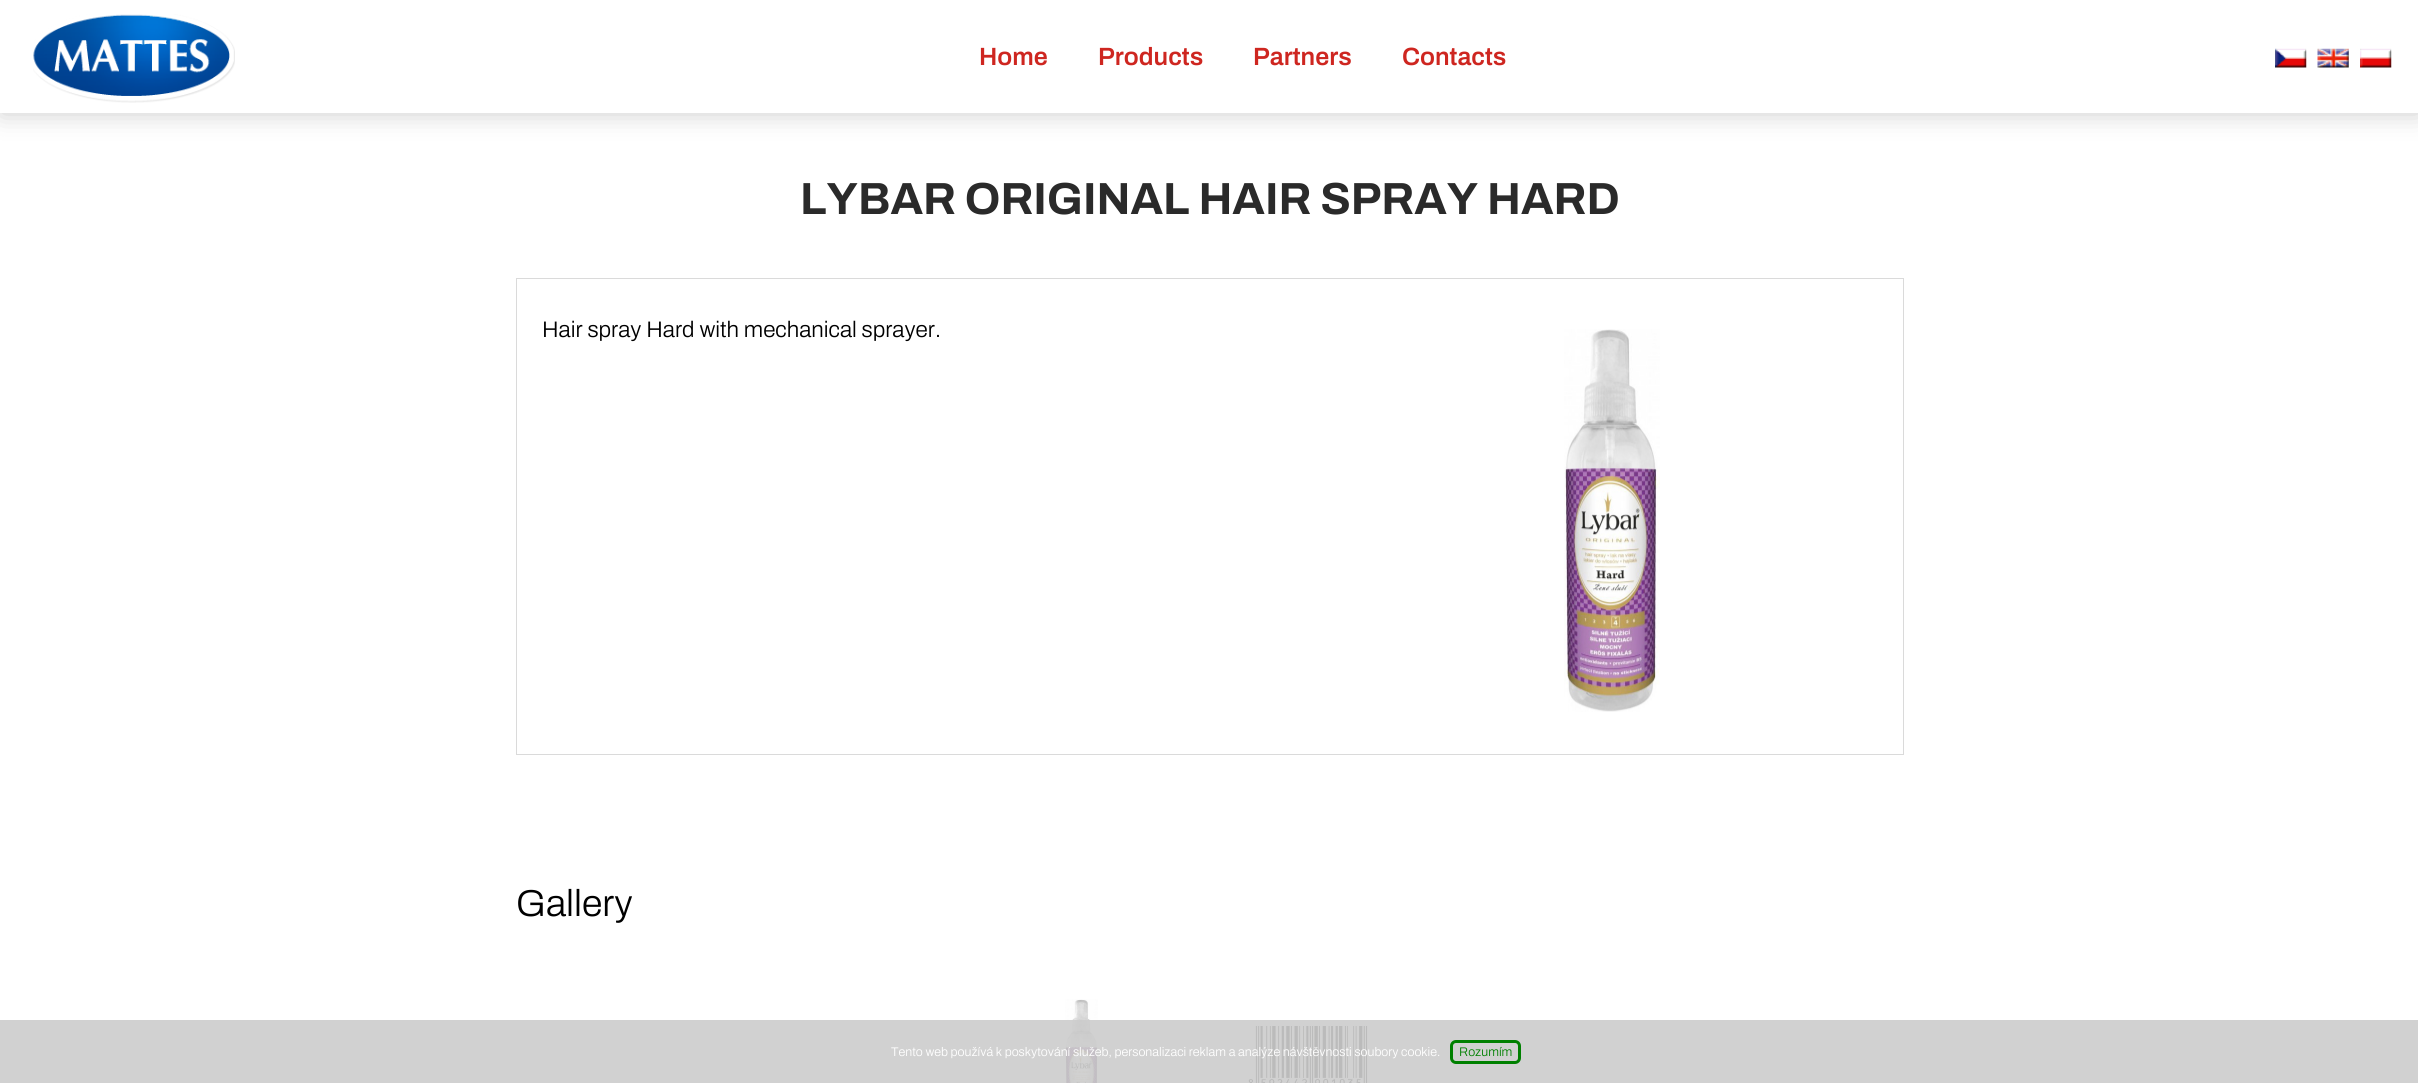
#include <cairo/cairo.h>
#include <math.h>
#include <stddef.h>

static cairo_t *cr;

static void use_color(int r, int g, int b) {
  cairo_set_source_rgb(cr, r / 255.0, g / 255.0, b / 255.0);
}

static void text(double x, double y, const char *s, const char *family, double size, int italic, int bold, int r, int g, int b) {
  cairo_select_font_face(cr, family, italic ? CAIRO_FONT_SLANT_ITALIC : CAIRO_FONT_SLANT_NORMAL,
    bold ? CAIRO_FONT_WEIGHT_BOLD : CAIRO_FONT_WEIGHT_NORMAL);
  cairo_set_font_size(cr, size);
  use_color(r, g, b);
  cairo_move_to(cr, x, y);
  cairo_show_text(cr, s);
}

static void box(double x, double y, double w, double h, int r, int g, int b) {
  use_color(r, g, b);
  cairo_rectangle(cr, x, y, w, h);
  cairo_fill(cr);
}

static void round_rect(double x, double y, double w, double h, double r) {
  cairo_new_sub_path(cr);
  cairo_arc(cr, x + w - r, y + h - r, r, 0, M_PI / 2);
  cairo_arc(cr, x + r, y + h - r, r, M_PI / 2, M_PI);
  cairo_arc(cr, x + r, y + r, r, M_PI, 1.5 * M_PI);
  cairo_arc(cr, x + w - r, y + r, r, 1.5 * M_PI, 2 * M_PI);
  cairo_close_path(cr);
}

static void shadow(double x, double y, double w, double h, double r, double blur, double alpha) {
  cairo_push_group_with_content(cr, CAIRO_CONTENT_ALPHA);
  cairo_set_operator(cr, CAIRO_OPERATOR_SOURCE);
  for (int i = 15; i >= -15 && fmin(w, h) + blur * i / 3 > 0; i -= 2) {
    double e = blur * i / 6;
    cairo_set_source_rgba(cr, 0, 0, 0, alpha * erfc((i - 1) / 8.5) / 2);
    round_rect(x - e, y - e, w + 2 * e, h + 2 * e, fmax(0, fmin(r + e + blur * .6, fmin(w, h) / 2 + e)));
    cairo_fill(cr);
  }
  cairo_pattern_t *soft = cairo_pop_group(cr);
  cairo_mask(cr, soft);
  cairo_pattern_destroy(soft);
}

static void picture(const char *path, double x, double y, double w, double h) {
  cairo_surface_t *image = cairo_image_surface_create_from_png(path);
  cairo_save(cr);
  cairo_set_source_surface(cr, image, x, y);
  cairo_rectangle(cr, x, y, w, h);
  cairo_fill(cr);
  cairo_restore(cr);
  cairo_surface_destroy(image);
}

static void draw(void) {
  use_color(255, 255, 255);
  cairo_paint(cr);
  use_color(0, 0, 0);
  shadow(1, 1, 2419, 113, 0, 12.5, 0.2);
  box(0, 0, 2418, 113, 255, 255, 255);
  picture("img_01.png", 33, 14, 202, 89);
  picture("img_02.png", 2275, 48, 32, 20);
  picture("img_03.png", 2317, 48, 32, 20);
  picture("img_04.png", 2360, 48, 32, 20);
  cairo_rectangle(cr, 516.5, 278.5, 1387, 476);
  use_color(218, 218, 218);
  cairo_set_line_width(cr, 1);
  cairo_stroke(cr);
  picture("img_05.png", 1564, 329, 96, 383);
  picture("img_06.png", 1065, 999, 33, 84);
  picture("img_07.png", 1248, 1026, 120, 57);
  cairo_set_source_rgba(cr, 0.8, 0.8, 0.8, 0.9);
  cairo_rectangle(cr, 0, 1020, 2418, 63);
  cairo_fill(cr);
  round_rect(1451.5, 1041.5, 68, 21, 4.5);
  use_color(0, 128, 0);
  cairo_set_line_width(cr, 3);
  cairo_stroke(cr);
  text(979, 65, "Home", "Archivo SemiBold", 25, 0, 0, 206, 38, 32);
  text(1098, 65, "Products", "Archivo SemiBold", 25, 0, 0, 206, 38, 32);
  text(1253, 65, "Partners", "Archivo SemiBold", 25, 0, 0, 206, 38, 32);
  text(1402, 65, "Contacts", "Archivo SemiBold", 25, 0, 0, 206, 38, 32);
  text(800, 214, "LYBAR ORIGINAL HAIR SPRAY HARD", "Archivo", 45, 0, 1, 42, 42, 42);
  text(542, 337, "Hair spray Hard with mechanical sprayer.", "Archivo Light", 22.5, 0, 0, 0, 0, 0);
  text(516, 916, "Gallery", "Archivo Light", 37.5, 0, 0, 0, 0, 0);
  text(891, 1056, "Tento web používá k poskytování služeb, personalizaci reklam a analýze návštěvnosti soubory cookie.", "Archivo Light", 12.5, 0, 0, 255, 255, 255);
  text(1459, 1056, "Rozumím", "Archivo Light", 12.5, 0, 0, 0, 128, 0);
}

int main(void) {
  cairo_surface_t *surface = cairo_image_surface_create(CAIRO_FORMAT_RGB24, 2418, 1083);
  cr = cairo_create(surface);
  cairo_font_options_t *options = cairo_font_options_create();
  cairo_font_options_set_hint_metrics(options, CAIRO_HINT_METRICS_OFF);
  cairo_font_options_set_hint_style(options, CAIRO_HINT_STYLE_NONE);
  cairo_set_font_options(cr, options);
  cairo_set_miter_limit(cr, 4);
  draw();
  cairo_surface_write_to_png(surface, "out.png");
  cairo_font_options_destroy(options);
  cairo_destroy(cr);
  cairo_surface_destroy(surface);
  return 0;
}
